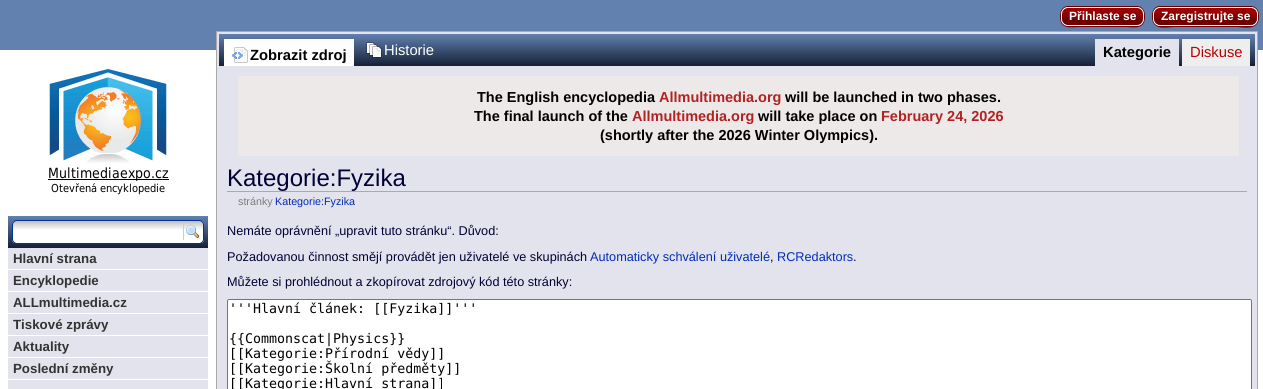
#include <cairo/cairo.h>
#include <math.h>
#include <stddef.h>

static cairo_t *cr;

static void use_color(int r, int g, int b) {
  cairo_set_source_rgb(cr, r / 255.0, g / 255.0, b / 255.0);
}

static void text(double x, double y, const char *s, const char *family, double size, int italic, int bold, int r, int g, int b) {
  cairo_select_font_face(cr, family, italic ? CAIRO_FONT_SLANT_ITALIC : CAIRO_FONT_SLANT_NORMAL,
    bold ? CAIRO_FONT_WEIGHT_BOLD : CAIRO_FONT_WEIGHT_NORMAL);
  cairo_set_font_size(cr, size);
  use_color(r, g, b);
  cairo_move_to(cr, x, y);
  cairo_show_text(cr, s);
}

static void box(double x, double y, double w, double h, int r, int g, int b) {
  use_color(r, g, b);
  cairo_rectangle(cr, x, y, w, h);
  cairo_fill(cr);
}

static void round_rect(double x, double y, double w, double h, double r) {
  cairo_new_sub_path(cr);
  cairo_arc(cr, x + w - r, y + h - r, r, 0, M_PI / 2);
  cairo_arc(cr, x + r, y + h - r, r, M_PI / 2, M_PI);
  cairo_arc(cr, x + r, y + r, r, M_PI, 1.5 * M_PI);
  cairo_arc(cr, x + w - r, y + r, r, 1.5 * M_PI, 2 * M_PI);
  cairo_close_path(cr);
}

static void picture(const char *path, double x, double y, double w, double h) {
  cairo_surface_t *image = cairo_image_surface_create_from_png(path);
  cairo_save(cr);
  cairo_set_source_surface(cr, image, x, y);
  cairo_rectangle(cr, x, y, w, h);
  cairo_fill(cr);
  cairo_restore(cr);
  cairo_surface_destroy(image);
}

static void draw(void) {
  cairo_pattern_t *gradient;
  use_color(255, 255, 255);
  cairo_paint(cr);
  box(0, 0, 1263, 50, 98, 129, 175);
  use_color(106, 0, 0);
  cairo_new_path(cr);
  cairo_move_to(cr, 1067, 7);
  cairo_curve_to(cr, 1061, 7, 1060, 12, 1060, 16.5);
  cairo_curve_to(cr, 1060, 22, 1061.5, 26, 1068, 26);
  cairo_curve_to(cr, 1062, 26, 1061, 21, 1061, 16.5);
  cairo_curve_to(cr, 1061, 12, 1062, 7, 1068, 7);
  cairo_close_path(cr);
  cairo_fill(cr);
  cairo_new_path(cr);
  cairo_move_to(cr, 1137, 26);
  cairo_curve_to(cr, 1143.5, 26, 1145, 22, 1145, 16.5);
  cairo_curve_to(cr, 1145, 11, 1143.5, 7, 1137, 7);
  cairo_curve_to(cr, 1143, 7, 1144, 12, 1144, 16.5);
  cairo_curve_to(cr, 1144, 21, 1143, 26, 1137, 26);
  cairo_close_path(cr);
  cairo_fill(cr);
  cairo_new_path(cr);
  cairo_move_to(cr, 1068, 6);
  cairo_curve_to(cr, 1063, 6, 1061, 10, 1061, 14);
  cairo_curve_to(cr, 1061, 10, 1064, 7, 1068, 7);
  cairo_line_to(cr, 1137, 7);
  cairo_curve_to(cr, 1141, 7, 1144, 10, 1144, 14);
  cairo_curve_to(cr, 1144, 10, 1142, 6, 1137, 6);
  cairo_close_path(cr);
  cairo_fill(cr);
  cairo_new_path(cr);
  cairo_move_to(cr, 1061, 19);
  cairo_curve_to(cr, 1061, 30, 1072, 27, 1080, 27);
  cairo_line_to(cr, 1126, 27);
  cairo_curve_to(cr, 1133, 27, 1144, 30, 1144, 19);
  cairo_curve_to(cr, 1144, 23, 1141, 26, 1137, 26);
  cairo_line_to(cr, 1068, 26);
  cairo_curve_to(cr, 1064, 26, 1061, 23, 1061, 19);
  cairo_close_path(cr);
  cairo_fill(cr);
  cairo_save(cr);
  round_rect(1061, 7, 83, 19, 7);
  cairo_clip(cr);
  gradient = cairo_pattern_create_linear(1062, 11, 1062, 20);
  cairo_pattern_add_color_stop_rgba(gradient, 0, 0.616, 0, 0, 1);
  cairo_pattern_add_color_stop_rgba(gradient, 1, 0.439, 0, 0, 1);
  cairo_set_source(cr, gradient);
  cairo_pattern_destroy(gradient);
  cairo_rectangle(cr, 1061, 8, 83, 17);
  cairo_fill(cr);
  cairo_restore(cr);
  round_rect(1061.5, 7.5, 82, 18, 6.5);
  use_color(255, 255, 255);
  cairo_set_line_width(cr, 1);
  cairo_stroke(cr);
  use_color(106, 0, 0);
  cairo_new_path(cr);
  cairo_move_to(cr, 1159, 7);
  cairo_curve_to(cr, 1153, 7, 1152, 12, 1152, 16.5);
  cairo_curve_to(cr, 1152, 22, 1153.5, 26, 1160, 26);
  cairo_curve_to(cr, 1154, 26, 1153, 21, 1153, 16.5);
  cairo_curve_to(cr, 1153, 12, 1154, 7, 1160, 7);
  cairo_close_path(cr);
  cairo_fill(cr);
  cairo_new_path(cr);
  cairo_move_to(cr, 1251, 26);
  cairo_curve_to(cr, 1257.5, 26, 1259, 22, 1259, 16.5);
  cairo_curve_to(cr, 1259, 11, 1257.5, 7, 1251, 7);
  cairo_curve_to(cr, 1257, 7, 1258, 12, 1258, 16.5);
  cairo_curve_to(cr, 1258, 21, 1257, 26, 1251, 26);
  cairo_close_path(cr);
  cairo_fill(cr);
  cairo_new_path(cr);
  cairo_move_to(cr, 1160, 6);
  cairo_curve_to(cr, 1155, 6, 1153, 10, 1153, 14);
  cairo_curve_to(cr, 1153, 10, 1156, 7, 1160, 7);
  cairo_line_to(cr, 1251, 7);
  cairo_curve_to(cr, 1255, 7, 1258, 10, 1258, 14);
  cairo_curve_to(cr, 1258, 10, 1256, 6, 1251, 6);
  cairo_close_path(cr);
  cairo_fill(cr);
  cairo_new_path(cr);
  cairo_move_to(cr, 1153, 19);
  cairo_curve_to(cr, 1153, 31, 1168, 27, 1175, 27);
  cairo_line_to(cr, 1236, 27);
  cairo_curve_to(cr, 1243, 27, 1258, 31, 1258, 19);
  cairo_curve_to(cr, 1258, 23, 1255, 26, 1251, 26);
  cairo_line_to(cr, 1160, 26);
  cairo_curve_to(cr, 1156, 26, 1153, 23, 1153, 19);
  cairo_close_path(cr);
  cairo_fill(cr);
  cairo_save(cr);
  round_rect(1153, 7, 105, 19, 7);
  cairo_clip(cr);
  gradient = cairo_pattern_create_linear(1154, 11, 1154, 20);
  cairo_pattern_add_color_stop_rgba(gradient, 0, 0.616, 0, 0, 1);
  cairo_pattern_add_color_stop_rgba(gradient, 1, 0.439, 0, 0, 1);
  cairo_set_source(cr, gradient);
  cairo_pattern_destroy(gradient);
  cairo_rectangle(cr, 1153, 8, 105, 17);
  cairo_fill(cr);
  cairo_restore(cr);
  round_rect(1153.5, 7.5, 104, 18, 6.5);
  use_color(255, 255, 255);
  cairo_stroke(cr);
  picture("img_01.png", 48, 69, 121, 126);
  gradient = cairo_pattern_create_linear(8, 216, 8, 248);
  cairo_pattern_add_color_stop_rgba(gradient, 0, 0.384, 0.506, 0.686, 1);
  cairo_pattern_add_color_stop_rgba(gradient, 1, 0.082, 0.125, 0.212, 1);
  cairo_set_source(cr, gradient);
  cairo_pattern_destroy(gradient);
  cairo_rectangle(cr, 8, 216, 200, 32);
  cairo_fill(cr);
  cairo_save(cr);
  round_rect(12, 220, 192, 24, 5);
  cairo_clip(cr);
  gradient = cairo_pattern_create_linear(13, 221, 13, 230);
  cairo_pattern_add_color_stop_rgba(gradient, 0, 0.749, 0.749, 0.749, 1);
  cairo_pattern_add_color_stop_rgba(gradient, 1, 1, 1, 1, 1);
  cairo_set_source(cr, gradient);
  cairo_pattern_destroy(gradient);
  cairo_rectangle(cr, 12, 221, 192, 22);
  cairo_fill(cr);
  cairo_restore(cr);
  round_rect(12.5, 220.5, 191, 23, 4.5);
  use_color(0, 51, 153);
  cairo_stroke(cr);
  picture("img_02.png", 186, 225, 13, 14);
  box(183, 224, 1, 16, 204, 204, 204);
  box(8, 248, 200, 21, 227, 227, 238);
  box(8, 270, 200, 21, 227, 227, 238);
  box(8, 292, 200, 21, 227, 227, 238);
  box(8, 314, 200, 21, 227, 227, 238);
  box(8, 336, 200, 21, 227, 227, 238);
  box(8, 358, 200, 21, 227, 227, 238);
  box(8, 380, 200, 9, 227, 227, 238);
  cairo_rectangle(cr, 216.5, 31.5, 1041, 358);
  cairo_fill_preserve(cr);
  use_color(170, 170, 170);
  cairo_stroke(cr);
  gradient = cairo_pattern_create_linear(219, 34, 219, 66);
  cairo_pattern_add_color_stop_rgba(gradient, 0, 0.384, 0.506, 0.686, 1);
  cairo_pattern_add_color_stop_rgba(gradient, 1, 0.082, 0.125, 0.212, 1);
  cairo_set_source(cr, gradient);
  cairo_pattern_destroy(gradient);
  cairo_rectangle(cr, 219, 34, 1036, 32);
  cairo_fill(cr);
  box(224, 39, 130, 27, 255, 255, 255);
  picture("img_03.png", 232, 47, 16, 16);
  picture("img_04.png", 366, 42, 16, 16);
  box(1095, 39, 84, 27, 227, 227, 238);
  box(1182, 39, 68, 27, 238, 238, 238);
  box(238, 76, 1001, 80, 238, 233, 233);
  box(227, 191, 1020, 1, 170, 170, 170);
  use_color(255, 255, 255);
  round_rect(227.5, 299.5, 1024, 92, 1.5);
  cairo_fill_preserve(cr);
  use_color(118, 118, 118);
  cairo_stroke(cr);
  text(1069, 20, "Přihlaste se", "Liberation Sans", 12, 0, 1, 255, 255, 255);
  text(1161, 20, "Zaregistrujte se", "Liberation Sans", 12, 0, 1, 255, 255, 255);
  text(13, 263, "Hlavní strana", "Liberation Sans", 13.3, 0, 1, 51, 51, 51);
  text(13, 285, "Encyklopedie", "Liberation Sans", 13.3, 0, 1, 51, 51, 51);
  text(13, 307, "ALLmultimedia.cz", "Liberation Sans", 13.3, 0, 1, 51, 51, 51);
  text(13, 329, "Tiskové zprávy", "Liberation Sans", 13.3, 0, 1, 51, 51, 51);
  text(13, 351, "Aktuality", "Liberation Sans", 13.3, 0, 1, 51, 51, 51);
  text(13, 373, "Poslední změny", "Liberation Sans", 13.3, 0, 1, 51, 51, 51);
  text(250, 60, "Zobrazit zdroj", "Liberation Sans", 14.75, 0, 1, 0, 0, 0);
  text(384, 55, "Historie", "Liberation Sans", 14.75, 0, 0, 255, 255, 255);
  text(1103, 57, "Kategorie", "Liberation Sans", 14.75, 0, 1, 0, 0, 0);
  text(1190, 57, "Diskuse", "Liberation Sans", 14.75, 0, 0, 186, 0, 0);
  text(477, 102, "The English encyclopedia", "Liberation Sans", 14.5, 0, 1, 0, 0, 0);
  text(659, 102, "Allmultimedia.org", "Liberation Sans", 14.5, 0, 1, 178, 34, 34);
  text(785, 102, "will be launched in two phases.", "Liberation Sans", 14.5, 0, 1, 0, 0, 0);
  text(474, 121, "The final launch of the", "Liberation Sans", 14.5, 0, 1, 0, 0, 0);
  text(632, 121, "Allmultimedia.org", "Liberation Sans", 14.5, 0, 1, 178, 34, 34);
  text(758, 121, "will take place on", "Liberation Sans", 14.5, 0, 1, 0, 0, 0);
  text(881, 121, "February 24, 2026", "Liberation Sans", 14.5, 0, 1, 178, 34, 34);
  text(600, 140, "(shortly after the 2026 Winter Olympics).", "Liberation Sans", 14.5, 0, 1, 0, 0, 0);
  text(227, 186, "Kategorie:Fyzika", "Liberation Sans", 24, 0, 0, 0, 0, 51);
  text(238, 205, "stránky", "Liberation Sans", 10.75, 0, 0, 125, 125, 125);
  text(275, 205, "Kategorie:Fyzika", "Liberation Sans", 10.75, 0, 0, 0, 43, 184);
  text(227, 235, "Nemáte oprávnění „upravit tuto stránku“. Důvod:", "Liberation Sans", 12.7, 0, 0, 0, 0, 51);
  text(227, 261, "Požadovanou činnost smějí provádět jen uživatelé ve skupinách", "Liberation Sans", 12.7, 0, 0, 0, 0, 51);
  text(590, 261, "Automaticky schválení uživatelé", "Liberation Sans", 12.7, 0, 0, 0, 43, 184);
  text(770, 261, ",", "Liberation Sans", 12.7, 0, 0, 0, 0, 51);
  text(777, 261, "RCRedaktors", "Liberation Sans", 12.7, 0, 0, 0, 43, 184);
  text(853, 261, ".", "Liberation Sans", 12.7, 0, 0, 0, 0, 51);
  text(227, 286, "Můžete si prohlédnout a zkopírovat zdrojový kód této stránky:", "Liberation Sans", 12.7, 0, 0, 0, 0, 51);
  text(229, 313, "'''Hlavní článek: [[Fyzika]]'''", "DejaVu Sans Mono", 13.3, 0, 0, 0, 0, 0);
  text(229, 343, "{{Commonscat|Physics}}", "DejaVu Sans Mono", 13.3, 0, 0, 0, 0, 0);
  text(229, 358, "[[Kategorie:Přírodní vědy]]", "DejaVu Sans Mono", 13.3, 0, 0, 0, 0, 0);
  text(229, 373, "[[Kategorie:Školní předměty]]", "DejaVu Sans Mono", 13.3, 0, 0, 0, 0, 0);
  text(229, 388, "[[Kategorie:Hlavní strana]]", "DejaVu Sans Mono", 13.3, 0, 0, 0, 0, 0);
}

int main(void) {
  cairo_surface_t *surface = cairo_image_surface_create(CAIRO_FORMAT_RGB24, 1263, 389);
  cr = cairo_create(surface);
  cairo_font_options_t *options = cairo_font_options_create();
  cairo_font_options_set_hint_metrics(options, CAIRO_HINT_METRICS_OFF);
  cairo_font_options_set_hint_style(options, CAIRO_HINT_STYLE_NONE);
  cairo_set_font_options(cr, options);
  cairo_set_miter_limit(cr, 4);
  draw();
  cairo_surface_write_to_png(surface, "out.png");
  cairo_font_options_destroy(options);
  cairo_destroy(cr);
  cairo_surface_destroy(surface);
  return 0;
}
